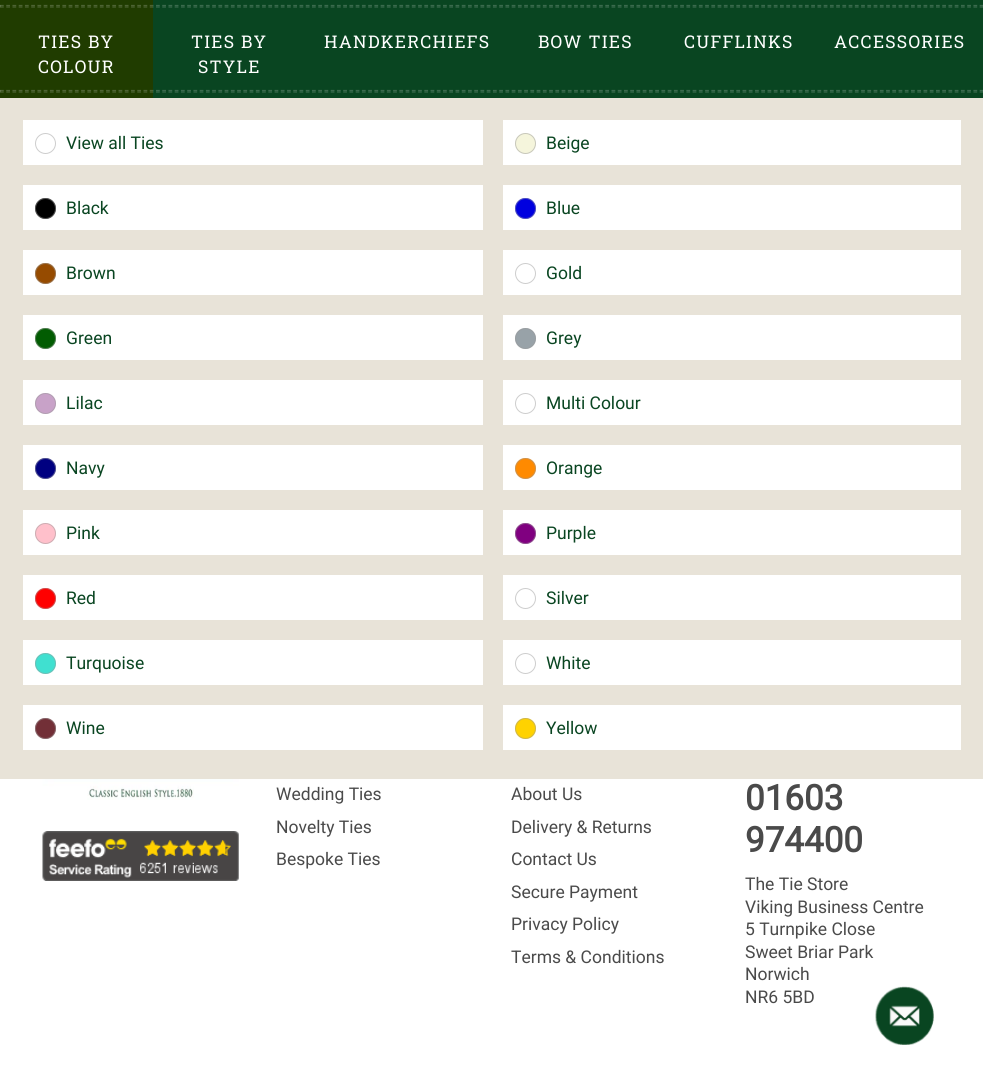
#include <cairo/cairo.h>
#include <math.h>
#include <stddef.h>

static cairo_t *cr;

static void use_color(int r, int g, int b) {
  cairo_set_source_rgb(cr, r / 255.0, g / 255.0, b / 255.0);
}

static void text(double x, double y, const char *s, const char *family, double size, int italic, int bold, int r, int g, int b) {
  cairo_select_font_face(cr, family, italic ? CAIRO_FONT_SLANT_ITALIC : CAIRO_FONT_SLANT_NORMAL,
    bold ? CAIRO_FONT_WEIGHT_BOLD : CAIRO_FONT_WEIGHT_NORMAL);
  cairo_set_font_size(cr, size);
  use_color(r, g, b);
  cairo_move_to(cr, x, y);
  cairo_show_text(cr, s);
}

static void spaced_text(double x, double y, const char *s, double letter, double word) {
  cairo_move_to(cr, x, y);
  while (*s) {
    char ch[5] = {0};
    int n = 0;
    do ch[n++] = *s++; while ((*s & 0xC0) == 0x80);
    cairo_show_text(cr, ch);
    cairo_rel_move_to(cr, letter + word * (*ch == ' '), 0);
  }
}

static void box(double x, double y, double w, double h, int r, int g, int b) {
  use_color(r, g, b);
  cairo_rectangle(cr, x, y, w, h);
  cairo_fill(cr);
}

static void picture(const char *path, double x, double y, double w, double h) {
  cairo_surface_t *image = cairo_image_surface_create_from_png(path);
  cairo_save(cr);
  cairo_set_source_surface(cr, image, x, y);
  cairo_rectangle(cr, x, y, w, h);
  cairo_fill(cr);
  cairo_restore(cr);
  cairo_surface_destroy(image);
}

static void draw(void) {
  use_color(255, 255, 255);
  cairo_paint(cr);
  box(153, 0, 830, 98, 9, 69, 33);
  box(0, 0, 153, 98, 32, 60, 0);
  cairo_new_path(cr);
  cairo_move_to(cr, 0, 5.5);
  cairo_line_to(cr, 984, 5.5);
  cairo_set_source_rgba(cr, 1, 1, 1, 0.2);
  cairo_set_line_width(cr, 1.2);
  cairo_set_dash(cr, (double[]){3.75, 2.49}, 2, 0);
  cairo_stroke(cr);
  cairo_new_path(cr);
  cairo_move_to(cr, 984, 5);
  cairo_line_to(cr, 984, 7.5);
  cairo_line_to(cr, 982.5, 6);
  cairo_close_path(cr);
  cairo_fill(cr);
  cairo_new_path(cr);
  cairo_move_to(cr, 0, 7);
  cairo_line_to(cr, 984, 7);
  cairo_stroke(cr);
  cairo_new_path(cr);
  cairo_move_to(cr, 0, 7.5);
  cairo_line_to(cr, 0, 5);
  cairo_line_to(cr, 1, 6);
  cairo_close_path(cr);
  cairo_fill(cr);
  box(0, 98, 983, 681, 232, 227, 216);
  box(23, 120, 460, 45, 255, 255, 255);
  cairo_arc(cr, 45.5, 143.5, 10, 0, 2 * M_PI);
  use_color(205, 205, 205);
  cairo_set_line_width(cr, 1);
  cairo_set_dash(cr, NULL, 0, 0);
  cairo_stroke(cr);
  box(503, 120, 458, 45, 255, 255, 255);
  use_color(245, 245, 220);
  cairo_arc(cr, 525.5, 143.5, 10.5, 0, 2 * M_PI);
  cairo_fill(cr);
  cairo_arc(cr, 525.5, 143.5, 10, 0, 2 * M_PI);
  cairo_set_source_rgba(cr, 0.608, 0.608, 0.608, 0.5);
  cairo_stroke(cr);
  box(23, 185, 460, 45, 255, 255, 255);
  use_color(0, 0, 0);
  cairo_arc(cr, 45.5, 208.5, 10.5, 0, 2 * M_PI);
  cairo_fill(cr);
  cairo_arc(cr, 45.5, 208.5, 10, 0, 2 * M_PI);
  cairo_set_source_rgba(cr, 0.608, 0.608, 0.608, 0.5);
  cairo_stroke(cr);
  box(503, 185, 458, 45, 255, 255, 255);
  use_color(0, 0, 223);
  cairo_arc(cr, 525.5, 208.5, 10.5, 0, 2 * M_PI);
  cairo_fill(cr);
  cairo_arc(cr, 525.5, 208.5, 10, 0, 2 * M_PI);
  cairo_set_source_rgba(cr, 0.608, 0.608, 0.608, 0.5);
  cairo_stroke(cr);
  box(23, 250, 460, 45, 255, 255, 255);
  use_color(150, 75, 0);
  cairo_arc(cr, 45.5, 273.5, 10.5, 0, 2 * M_PI);
  cairo_fill(cr);
  cairo_arc(cr, 45.5, 273.5, 10, 0, 2 * M_PI);
  cairo_set_source_rgba(cr, 0.608, 0.608, 0.608, 0.5);
  cairo_stroke(cr);
  box(503, 250, 458, 45, 255, 255, 255);
  cairo_arc(cr, 525.5, 273.5, 10, 0, 2 * M_PI);
  use_color(205, 205, 205);
  cairo_stroke(cr);
  box(23, 315, 460, 45, 255, 255, 255);
  use_color(2, 92, 2);
  cairo_arc(cr, 45.5, 338.5, 10.5, 0, 2 * M_PI);
  cairo_fill(cr);
  cairo_arc(cr, 45.5, 338.5, 10, 0, 2 * M_PI);
  cairo_set_source_rgba(cr, 0.608, 0.608, 0.608, 0.5);
  cairo_stroke(cr);
  box(503, 315, 458, 45, 255, 255, 255);
  use_color(152, 162, 168);
  cairo_arc(cr, 525.5, 338.5, 10.5, 0, 2 * M_PI);
  cairo_fill(cr);
  cairo_arc(cr, 525.5, 338.5, 10, 0, 2 * M_PI);
  cairo_set_source_rgba(cr, 0.608, 0.608, 0.608, 0.5);
  cairo_stroke(cr);
  box(23, 380, 460, 45, 255, 255, 255);
  use_color(200, 162, 200);
  cairo_arc(cr, 45.5, 403.5, 10.5, 0, 2 * M_PI);
  cairo_fill(cr);
  cairo_arc(cr, 45.5, 403.5, 10, 0, 2 * M_PI);
  cairo_set_source_rgba(cr, 0.608, 0.608, 0.608, 0.5);
  cairo_stroke(cr);
  box(503, 380, 458, 45, 255, 255, 255);
  cairo_arc(cr, 525.5, 403.5, 10, 0, 2 * M_PI);
  use_color(205, 205, 205);
  cairo_stroke(cr);
  box(23, 445, 460, 45, 255, 255, 255);
  use_color(0, 0, 128);
  cairo_arc(cr, 45.5, 468.5, 10.5, 0, 2 * M_PI);
  cairo_fill(cr);
  cairo_arc(cr, 45.5, 468.5, 10, 0, 2 * M_PI);
  cairo_set_source_rgba(cr, 0.608, 0.608, 0.608, 0.5);
  cairo_stroke(cr);
  box(503, 445, 458, 45, 255, 255, 255);
  use_color(255, 138, 0);
  cairo_arc(cr, 525.5, 468.5, 10.5, 0, 2 * M_PI);
  cairo_fill(cr);
  cairo_arc(cr, 525.5, 468.5, 10, 0, 2 * M_PI);
  cairo_set_source_rgba(cr, 0.608, 0.608, 0.608, 0.5);
  cairo_stroke(cr);
  box(23, 510, 460, 45, 255, 255, 255);
  use_color(255, 192, 203);
  cairo_arc(cr, 45.5, 533.5, 10.5, 0, 2 * M_PI);
  cairo_fill(cr);
  cairo_arc(cr, 45.5, 533.5, 10, 0, 2 * M_PI);
  cairo_set_source_rgba(cr, 0.608, 0.608, 0.608, 0.5);
  cairo_stroke(cr);
  box(503, 510, 458, 45, 255, 255, 255);
  use_color(128, 0, 128);
  cairo_arc(cr, 525.5, 533.5, 10.5, 0, 2 * M_PI);
  cairo_fill(cr);
  cairo_arc(cr, 525.5, 533.5, 10, 0, 2 * M_PI);
  cairo_set_source_rgba(cr, 0.608, 0.608, 0.608, 0.5);
  cairo_stroke(cr);
  box(23, 575, 460, 45, 255, 255, 255);
  use_color(255, 0, 0);
  cairo_arc(cr, 45.5, 598.5, 10.5, 0, 2 * M_PI);
  cairo_fill(cr);
  cairo_arc(cr, 45.5, 598.5, 10, 0, 2 * M_PI);
  cairo_set_source_rgba(cr, 0.608, 0.608, 0.608, 0.5);
  cairo_stroke(cr);
  box(503, 575, 458, 45, 255, 255, 255);
  cairo_arc(cr, 525.5, 598.5, 10, 0, 2 * M_PI);
  use_color(205, 205, 205);
  cairo_stroke(cr);
  box(23, 640, 460, 45, 255, 255, 255);
  use_color(64, 224, 208);
  cairo_arc(cr, 45.5, 663.5, 10.5, 0, 2 * M_PI);
  cairo_fill(cr);
  cairo_arc(cr, 45.5, 663.5, 10, 0, 2 * M_PI);
  cairo_set_source_rgba(cr, 0.608, 0.608, 0.608, 0.5);
  cairo_stroke(cr);
  box(503, 640, 458, 45, 255, 255, 255);
  cairo_arc(cr, 525.5, 663.5, 10, 0, 2 * M_PI);
  use_color(205, 205, 205);
  cairo_stroke(cr);
  box(23, 705, 460, 45, 255, 255, 255);
  use_color(114, 47, 55);
  cairo_arc(cr, 45.5, 728.5, 10.5, 0, 2 * M_PI);
  cairo_fill(cr);
  cairo_arc(cr, 45.5, 728.5, 10, 0, 2 * M_PI);
  cairo_set_source_rgba(cr, 0.608, 0.608, 0.608, 0.5);
  cairo_stroke(cr);
  box(503, 705, 458, 45, 255, 255, 255);
  use_color(255, 210, 0);
  cairo_arc(cr, 525.5, 728.5, 10.5, 0, 2 * M_PI);
  cairo_fill(cr);
  cairo_arc(cr, 525.5, 728.5, 10, 0, 2 * M_PI);
  cairo_set_source_rgba(cr, 0.608, 0.608, 0.608, 0.5);
  cairo_stroke(cr);
  cairo_new_path(cr);
  cairo_move_to(cr, 0, 90.5);
  cairo_line_to(cr, 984, 90.5);
  cairo_set_source_rgba(cr, 1, 1, 1, 0.2);
  cairo_set_line_width(cr, 1.2);
  cairo_set_dash(cr, (double[]){3.75, 2.49}, 2, 0);
  cairo_stroke(cr);
  cairo_new_path(cr);
  cairo_move_to(cr, 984, 90);
  cairo_line_to(cr, 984, 92.5);
  cairo_line_to(cr, 982.5, 91);
  cairo_close_path(cr);
  cairo_fill(cr);
  cairo_new_path(cr);
  cairo_move_to(cr, 0, 92);
  cairo_line_to(cr, 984, 92);
  cairo_stroke(cr);
  cairo_new_path(cr);
  cairo_move_to(cr, 0, 92.5);
  cairo_line_to(cr, 0, 90);
  cairo_line_to(cr, 1, 91);
  cairo_close_path(cr);
  cairo_fill(cr);
  picture("img_01.png", 42, 779, 197, 21);
  picture("img_02.png", 42, 831, 197, 50);
  picture("img_03.png", 875, 986, 59, 59);
  cairo_select_font_face(cr, "Roboto Slab", CAIRO_FONT_SLANT_NORMAL, CAIRO_FONT_WEIGHT_NORMAL);
  cairo_set_font_size(cr, 17.5);
  use_color(255, 255, 255);
  spaced_text(38, 48, "TIES BY", 1.25, 0);
  spaced_text(38, 73, "COLOUR", 1.25, 0);
  text(66, 149, "View all Ties", "Roboto", 17.5, 0, 0, 9, 69, 33);
  text(546, 149, "Beige", "Roboto", 17.5, 0, 0, 9, 69, 33);
  text(66, 214, "Black", "Roboto", 17.5, 0, 0, 9, 69, 33);
  text(546, 214, "Blue", "Roboto", 17.5, 0, 0, 9, 69, 33);
  text(66, 279, "Brown", "Roboto", 17.5, 0, 0, 9, 69, 33);
  text(546, 279, "Gold", "Roboto", 17.5, 0, 0, 9, 69, 33);
  text(66, 344, "Green", "Roboto", 17.5, 0, 0, 9, 69, 33);
  text(546, 344, "Grey", "Roboto", 17.5, 0, 0, 9, 69, 33);
  text(66, 409, "Lilac", "Roboto", 17.5, 0, 0, 9, 69, 33);
  text(546, 409, "Multi Colour", "Roboto", 17.5, 0, 0, 9, 69, 33);
  text(66, 474, "Navy", "Roboto", 17.5, 0, 0, 9, 69, 33);
  text(546, 474, "Orange", "Roboto", 17.5, 0, 0, 9, 69, 33);
  text(66, 539, "Pink", "Roboto", 17.5, 0, 0, 9, 69, 33);
  text(546, 539, "Purple", "Roboto", 17.5, 0, 0, 9, 69, 33);
  text(66, 604, "Red", "Roboto", 17.5, 0, 0, 9, 69, 33);
  text(546, 604, "Silver", "Roboto", 17.5, 0, 0, 9, 69, 33);
  text(66, 669, "Turquoise", "Roboto", 17.5, 0, 0, 9, 69, 33);
  text(546, 669, "White", "Roboto", 17.5, 0, 0, 9, 69, 33);
  text(66, 734, "Wine", "Roboto", 17.5, 0, 0, 9, 69, 33);
  text(546, 734, "Yellow", "Roboto", 17.5, 0, 0, 9, 69, 33);
  cairo_select_font_face(cr, "Roboto Slab", CAIRO_FONT_SLANT_NORMAL, CAIRO_FONT_WEIGHT_NORMAL);
  use_color(255, 255, 255);
  spaced_text(191, 48, "TIES BY", 1.25, 0);
  spaced_text(198, 73, "STYLE", 1.25, 0);
  spaced_text(324, 48, "HANDKERCHIEFS", 1.25, 0);
  spaced_text(538, 48, "BOW TIES", 1.25, 0);
  spaced_text(684, 48, "CUFFLINKS", 1.25, 0);
  spaced_text(834, 48, "ACCESSORIES", 1.25, 0);
  text(276, 800, "Wedding Ties", "Roboto", 17.5, 0, 0, 74, 74, 74);
  text(276, 833, "Novelty Ties", "Roboto", 17.5, 0, 0, 74, 74, 74);
  text(276, 865, "Bespoke Ties", "Roboto", 17.5, 0, 0, 74, 74, 74);
  text(511, 800, "About Us", "Roboto", 17.5, 0, 0, 74, 74, 74);
  text(511, 833, "Delivery & Returns", "Roboto", 17.5, 0, 0, 74, 74, 74);
  text(511, 865, "Contact Us", "Roboto", 17.5, 0, 0, 74, 74, 74);
  text(511, 898, "Secure Payment", "Roboto", 17.5, 0, 0, 74, 74, 74);
  text(511, 930, "Privacy Policy", "Roboto", 17.5, 0, 0, 74, 74, 74);
  text(511, 963, "Terms & Conditions", "Roboto", 17.5, 0, 0, 74, 74, 74);
  text(745, 810, "01603", "Roboto", 35, 0, 1, 74, 74, 74);
  text(745, 852, "974400", "Roboto", 35, 0, 1, 74, 74, 74);
  text(745, 890, "The Tie Store", "Roboto", 17.5, 0, 0, 74, 74, 74);
  text(745, 913, "Viking Business Centre", "Roboto", 17.5, 0, 0, 74, 74, 74);
  text(745, 935, "5 Turnpike Close", "Roboto", 17.5, 0, 0, 74, 74, 74);
  text(745, 958, "Sweet Briar Park", "Roboto", 17.5, 0, 0, 74, 74, 74);
  text(745, 980, "Norwich", "Roboto", 17.5, 0, 0, 74, 74, 74);
  text(745, 1003, "NR6 5BD", "Roboto", 17.5, 0, 0, 74, 74, 74);
}

int main(void) {
  cairo_surface_t *surface = cairo_image_surface_create(CAIRO_FORMAT_RGB24, 983, 1069);
  cr = cairo_create(surface);
  cairo_font_options_t *options = cairo_font_options_create();
  cairo_font_options_set_hint_metrics(options, CAIRO_HINT_METRICS_OFF);
  cairo_font_options_set_hint_style(options, CAIRO_HINT_STYLE_NONE);
  cairo_set_font_options(cr, options);
  cairo_set_miter_limit(cr, 4);
  draw();
  cairo_surface_write_to_png(surface, "out.png");
  cairo_font_options_destroy(options);
  cairo_destroy(cr);
  cairo_surface_destroy(surface);
  return 0;
}
